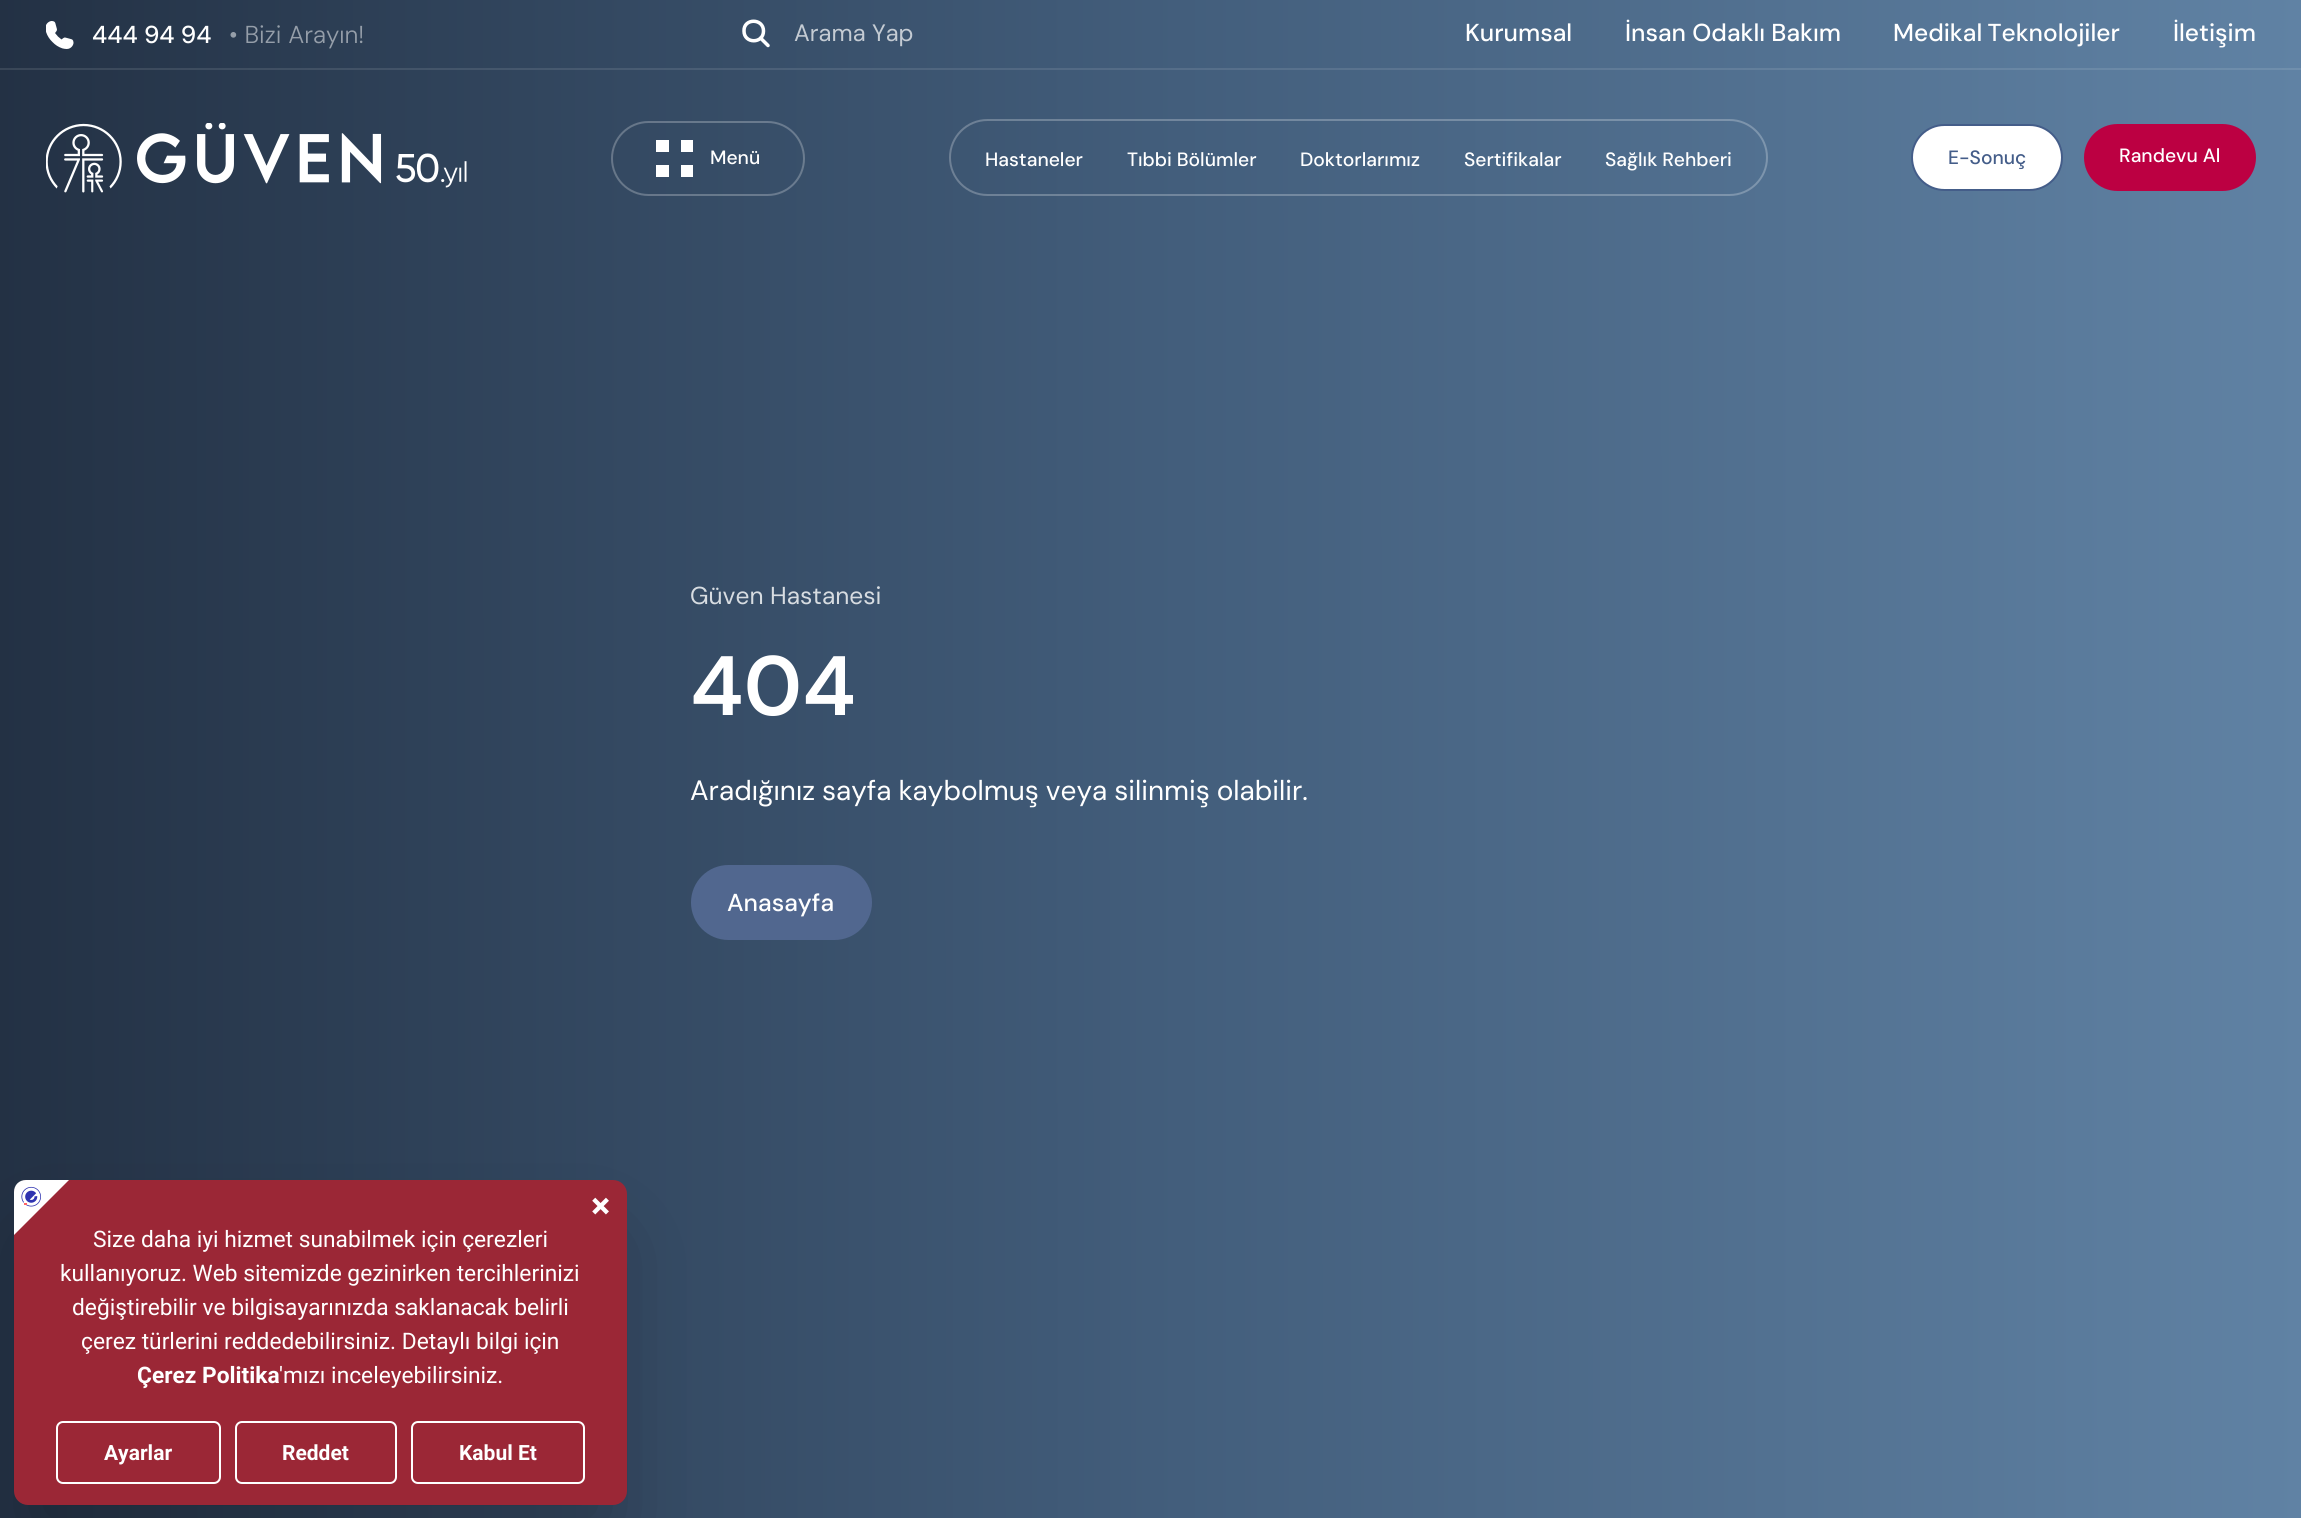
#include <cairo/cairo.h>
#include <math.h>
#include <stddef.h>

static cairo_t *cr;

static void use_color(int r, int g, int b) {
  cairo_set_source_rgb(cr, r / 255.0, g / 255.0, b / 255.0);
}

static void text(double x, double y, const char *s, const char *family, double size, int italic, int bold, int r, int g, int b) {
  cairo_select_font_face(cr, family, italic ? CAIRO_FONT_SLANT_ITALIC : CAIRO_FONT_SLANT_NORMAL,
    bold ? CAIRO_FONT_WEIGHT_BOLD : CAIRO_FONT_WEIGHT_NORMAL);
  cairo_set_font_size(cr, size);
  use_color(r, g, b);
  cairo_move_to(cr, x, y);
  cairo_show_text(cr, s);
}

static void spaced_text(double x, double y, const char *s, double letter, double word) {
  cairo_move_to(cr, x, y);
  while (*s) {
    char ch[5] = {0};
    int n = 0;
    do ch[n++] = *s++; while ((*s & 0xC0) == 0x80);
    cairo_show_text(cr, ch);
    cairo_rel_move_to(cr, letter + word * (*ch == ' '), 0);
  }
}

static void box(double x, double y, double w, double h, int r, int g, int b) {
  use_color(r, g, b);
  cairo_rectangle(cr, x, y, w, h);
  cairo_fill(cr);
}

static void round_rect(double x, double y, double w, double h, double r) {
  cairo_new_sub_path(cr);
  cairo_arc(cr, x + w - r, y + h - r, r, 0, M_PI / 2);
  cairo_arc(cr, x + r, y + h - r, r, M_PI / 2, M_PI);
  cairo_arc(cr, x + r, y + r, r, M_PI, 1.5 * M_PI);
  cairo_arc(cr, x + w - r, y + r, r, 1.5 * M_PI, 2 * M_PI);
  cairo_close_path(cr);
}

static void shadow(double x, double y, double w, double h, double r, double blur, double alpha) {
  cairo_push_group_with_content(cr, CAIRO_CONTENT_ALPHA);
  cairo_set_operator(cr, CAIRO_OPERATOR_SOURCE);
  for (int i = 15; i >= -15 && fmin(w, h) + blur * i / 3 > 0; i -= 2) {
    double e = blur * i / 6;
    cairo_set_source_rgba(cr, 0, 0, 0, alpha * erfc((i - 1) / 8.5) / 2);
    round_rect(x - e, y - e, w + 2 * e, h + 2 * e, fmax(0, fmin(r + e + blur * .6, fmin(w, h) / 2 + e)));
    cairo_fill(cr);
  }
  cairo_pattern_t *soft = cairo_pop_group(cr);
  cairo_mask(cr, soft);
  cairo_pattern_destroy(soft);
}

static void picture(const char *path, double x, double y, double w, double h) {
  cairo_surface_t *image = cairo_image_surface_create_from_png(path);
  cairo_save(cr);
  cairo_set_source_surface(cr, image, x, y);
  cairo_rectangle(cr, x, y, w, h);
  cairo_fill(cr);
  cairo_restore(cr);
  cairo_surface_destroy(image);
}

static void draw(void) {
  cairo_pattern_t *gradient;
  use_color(255, 255, 255);
  cairo_paint(cr);
  gradient = cairo_pattern_create_linear(0, 760, 2301, 759);
  cairo_pattern_add_color_stop_rgba(gradient, 0, 0.137, 0.192, 0.267, 1);
  cairo_pattern_add_color_stop_rgba(gradient, 0.5, 0.259, 0.365, 0.482, 1);
  cairo_pattern_add_color_stop_rgba(gradient, 1, 0.376, 0.51, 0.643, 1);
  cairo_set_source(cr, gradient);
  cairo_pattern_destroy(gradient);
  cairo_rectangle(cr, 0, 0, 2301, 1518);
  cairo_fill(cr);
  picture("img_01.png", 46, 21, 28, 28);
  cairo_new_path(cr);
  cairo_move_to(cr, 763.5, 31);
  cairo_curve_to(cr, 763.5, 44, 744, 44, 744, 31);
  cairo_curve_to(cr, 743.5, 18, 763.5, 18, 763.5, 31);
  cairo_close_path(cr);
  cairo_move_to(cr, 760.5, 38);
  cairo_line_to(cr, 768, 45.5);
  use_color(255, 255, 255);
  cairo_set_line_width(cr, 3.5);
  cairo_set_line_cap(cr, CAIRO_LINE_CAP_ROUND);
  cairo_set_line_join(cr, CAIRO_LINE_JOIN_ROUND);
  cairo_stroke(cr);
  picture("img_02.png", 46, 123, 421, 70);
  round_rect(612, 122, 192, 73, 36.5);
  cairo_set_source_rgba(cr, 1, 1, 1, 0.25);
  cairo_set_line_width(cr, 2);
  cairo_set_line_cap(cr, CAIRO_LINE_CAP_BUTT);
  cairo_set_line_join(cr, CAIRO_LINE_JOIN_MITER);
  cairo_stroke(cr);
  box(656, 140, 13, 12, 255, 255, 255);
  box(681, 140, 12, 12, 255, 255, 255);
  box(656, 165, 13, 12, 255, 255, 255);
  box(681, 165, 12, 12, 255, 255, 255);
  round_rect(950, 120, 817, 75, 37.5);
  cairo_set_source_rgba(cr, 1, 1, 1, 0.25);
  cairo_stroke(cr);
  use_color(255, 255, 255);
  round_rect(1912, 125, 150, 65, 32.5);
  cairo_fill_preserve(cr);
  use_color(68, 93, 137);
  cairo_stroke(cr);
  use_color(188, 0, 66);
  round_rect(2084, 124, 172, 67, 33.5);
  cairo_fill(cr);
  gradient = cairo_pattern_create_linear(0, 760, 2301, 759);
  cairo_pattern_add_color_stop_rgba(gradient, 0, 0.224, 0.275, 0.341, 1);
  cairo_pattern_add_color_stop_rgba(gradient, 0.5, 0.333, 0.427, 0.533, 1);
  cairo_pattern_add_color_stop_rgba(gradient, 1, 0.439, 0.561, 0.678, 1);
  cairo_set_source(cr, gradient);
  cairo_pattern_destroy(gradient);
  cairo_rectangle(cr, 0, 68, 2301, 2);
  cairo_fill(cr);
  use_color(81, 103, 143);
  round_rect(692, 866, 179, 73, 36.5);
  cairo_fill_preserve(cr);
  cairo_stroke(cr);
  use_color(0, 0, 0);
  shadow(35, 1244, 571, 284, 0, 44, 0.25);
  use_color(155, 39, 54);
  round_rect(14, 1180, 613, 325, 14);
  cairo_fill(cr);
  use_color(255, 255, 255);
  cairo_new_path(cr);
  cairo_move_to(cr, 26, 1180);
  cairo_curve_to(cr, 19, 1180, 14, 1185, 14, 1192);
  cairo_line_to(cr, 14, 1235);
  cairo_line_to(cr, 69, 1180);
  cairo_close_path(cr);
  cairo_fill(cr);
  picture("img_03.png", 21, 1186, 20, 21);
  picture("img_04.png", 592, 1197, 17, 18);
  round_rect(57, 1422, 163, 61, 6);
  cairo_stroke(cr);
  round_rect(236, 1422, 160, 61, 6);
  cairo_stroke(cr);
  round_rect(412, 1422, 172, 61, 6);
  cairo_stroke(cr);
  text(92, 43, "444 94 94", "DM Sans Medium", 24.5, 0, 0, 255, 255, 255);
  text(229, 43, "• Bizi Arayın!", "DM Sans Light", 24.5, 0, 0, 149, 158, 169);
  text(794, 41, "Arama Yap", "DM Sans", 23.75, 0, 0, 196, 203, 211);
  text(1465, 41, "Kurumsal", "DM Sans Medium", 24.5, 0, 0, 255, 255, 255);
  text(1625, 41, "İnsan Odaklı Bakım", "DM Sans Medium", 24.5, 0, 0, 255, 255, 255);
  spaced_text(1893, 41, "Medikal Teknolojiler", 0, -1);
  text(2173, 41, "İletişim", "DM Sans Medium", 24.5, 0, 0, 255, 255, 255);
  text(710, 164, "Menü", "DM Sans Medium", 19.25, 0, 0, 255, 255, 255);
  text(985, 166, "Hastaneler", "DM Sans Medium", 19.25, 0, 0, 255, 255, 255);
  text(1127, 166, "Tıbbi Bölümler", "DM Sans Medium", 19.25, 0, 0, 255, 255, 255);
  text(1300, 166, "Doktorlarımız", "DM Sans Medium", 19.25, 0, 0, 255, 255, 255);
  text(1464, 166, "Sertifikalar", "DM Sans Medium", 19.25, 0, 0, 255, 255, 255);
  text(1605, 166, "Sağlık Rehberi", "DM Sans Medium", 19.25, 0, 0, 255, 255, 255);
  text(1948, 164, "E-Sonuç", "DM Sans Medium", 19.25, 0, 0, 68, 93, 137);
  text(2119, 162, "Randevu Al", "DM Sans Medium", 19.25, 0, 0, 255, 255, 255);
  text(690, 604, "Güven Hastanesi", "DM Sans", 24.5, 0, 0, 215, 220, 225);
  text(690, 715, "404", "DM Sans SemiBold", 84, 0, 0, 255, 255, 255);
  cairo_select_font_face(cr, "DM Sans", CAIRO_FONT_SLANT_NORMAL, CAIRO_FONT_WEIGHT_NORMAL);
  cairo_set_font_size(cr, 28);
  spaced_text(690, 800, "Aradığınız sayfa kaybolmuş veya silinmiş olabilir.", 0, -0.5);
  text(727, 911, "Anasayfa", "DM Sans Medium", 24.5, 0, 0, 255, 255, 255);
  text(93, 1247, "Size daha iyi hizmet sunabilmek için çerezleri", "Roboto", 22.75, 0, 0, 255, 255, 255);
  text(60, 1281, "kullanıyoruz. Web sitemizde gezinirken tercihlerinizi", "Roboto", 22.75, 0, 0, 255, 255, 255);
  text(72, 1315, "değiştirebilir ve bilgisayarınızda saklanacak belirli", "Roboto", 22.75, 0, 0, 255, 255, 255);
  text(81, 1349, "çerez türlerini reddedebilirsiniz. Detaylı bilgi için", "Roboto", 22.75, 0, 0, 255, 255, 255);
  text(137, 1383, "Çerez Politika", "Roboto", 22.75, 0, 1, 255, 255, 255);
  text(279, 1383, "'mızı inceleyebilirsiniz.", "Roboto", 22.75, 0, 0, 255, 255, 255);
  text(104, 1460, "Ayarlar", "Roboto", 21, 0, 1, 255, 255, 255);
  text(282, 1460, "Reddet", "Roboto", 21, 0, 1, 255, 255, 255);
  text(459, 1460, "Kabul Et", "Roboto", 21, 0, 1, 255, 255, 255);
}

int main(void) {
  cairo_surface_t *surface = cairo_image_surface_create(CAIRO_FORMAT_RGB24, 2301, 1518);
  cr = cairo_create(surface);
  cairo_font_options_t *options = cairo_font_options_create();
  cairo_font_options_set_hint_metrics(options, CAIRO_HINT_METRICS_OFF);
  cairo_font_options_set_hint_style(options, CAIRO_HINT_STYLE_NONE);
  cairo_set_font_options(cr, options);
  cairo_set_miter_limit(cr, 4);
  draw();
  cairo_surface_write_to_png(surface, "out.png");
  cairo_font_options_destroy(options);
  cairo_destroy(cr);
  cairo_surface_destroy(surface);
  return 0;
}
